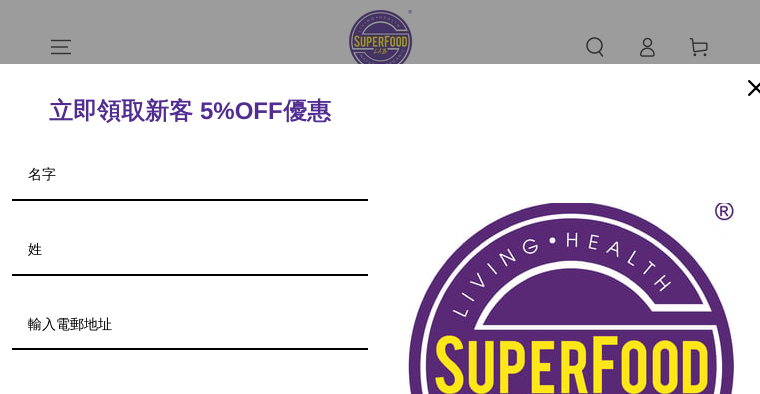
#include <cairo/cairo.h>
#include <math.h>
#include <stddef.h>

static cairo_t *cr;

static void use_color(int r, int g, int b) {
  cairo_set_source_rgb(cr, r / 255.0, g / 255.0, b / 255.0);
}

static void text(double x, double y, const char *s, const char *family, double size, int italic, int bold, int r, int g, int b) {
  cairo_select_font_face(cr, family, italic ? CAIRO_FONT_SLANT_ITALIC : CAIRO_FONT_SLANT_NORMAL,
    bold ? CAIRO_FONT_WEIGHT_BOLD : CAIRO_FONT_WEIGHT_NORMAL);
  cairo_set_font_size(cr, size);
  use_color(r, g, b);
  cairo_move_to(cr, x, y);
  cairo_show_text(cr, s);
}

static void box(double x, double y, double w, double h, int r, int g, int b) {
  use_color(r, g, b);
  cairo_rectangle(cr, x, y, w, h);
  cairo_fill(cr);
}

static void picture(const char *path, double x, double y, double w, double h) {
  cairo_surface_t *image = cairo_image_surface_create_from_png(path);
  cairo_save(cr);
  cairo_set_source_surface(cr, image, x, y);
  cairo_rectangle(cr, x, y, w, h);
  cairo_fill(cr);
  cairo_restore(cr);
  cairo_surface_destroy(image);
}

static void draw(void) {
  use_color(156, 156, 156);
  cairo_paint(cr);
  cairo_new_path(cr);
  cairo_move_to(cr, 51, 53.5);
  cairo_line_to(cr, 71, 53.5);
  cairo_move_to(cr, 51, 47);
  cairo_line_to(cr, 68, 47);
  cairo_move_to(cr, 51, 40.5);
  cairo_line_to(cr, 71, 40.5);
  use_color(48, 48, 48);
  cairo_set_line_width(cr, 1.4);
  cairo_stroke(cr);
  picture("img_01.png", 348, 10, 65, 54);
  cairo_arc(cr, 594.5, 45.5, 7.5, 0, 2 * M_PI);
  cairo_set_line_width(cr, 1.5);
  cairo_stroke(cr);
  cairo_new_path(cr);
  cairo_move_to(cr, 599, 51.5);
  cairo_line_to(cr, 602.5, 56);
  cairo_set_line_cap(cr, CAIRO_LINE_CAP_ROUND);
  cairo_stroke(cr);
  picture("img_02.png", 640, 37, 15, 20);
  picture("img_03.png", 689, 37, 19, 20);
  box(0, 64, 760, 330, 255, 255, 255);
  picture("img_04.png", 748, 80, 12, 16);
  box(12, 199, 356, 2, 0, 0, 0);
  box(12, 274, 356, 2, 0, 0, 0);
  box(12, 348, 356, 2, 0, 0, 0);
  picture("img_05.png", 407, 203, 327, 191);
  text(49, 119, "立即領取新客", "WenQuanYi Zen Hei", 24, 0, 1, 81, 45, 145);
  text(200, 119, "5%OFF", "Liberation Sans", 24, 0, 1, 81, 45, 145);
  text(283, 119, "優惠", "WenQuanYi Zen Hei", 24, 0, 1, 81, 45, 145);
  text(28, 179, "名字", "WenQuanYi Zen Hei Medium", 14, 0, 0, 0, 0, 0);
  text(28, 254, "姓", "WenQuanYi Zen Hei Medium", 14, 0, 0, 0, 0, 0);
  text(28, 329, "輸入電郵地址", "WenQuanYi Zen Hei Medium", 14, 0, 0, 0, 0, 0);
}

int main(void) {
  cairo_surface_t *surface = cairo_image_surface_create(CAIRO_FORMAT_RGB24, 760, 394);
  cr = cairo_create(surface);
  cairo_font_options_t *options = cairo_font_options_create();
  cairo_font_options_set_hint_metrics(options, CAIRO_HINT_METRICS_OFF);
  cairo_font_options_set_hint_style(options, CAIRO_HINT_STYLE_NONE);
  cairo_set_font_options(cr, options);
  cairo_set_miter_limit(cr, 4);
  draw();
  cairo_surface_write_to_png(surface, "out.png");
  cairo_font_options_destroy(options);
  cairo_destroy(cr);
  cairo_surface_destroy(surface);
  return 0;
}
